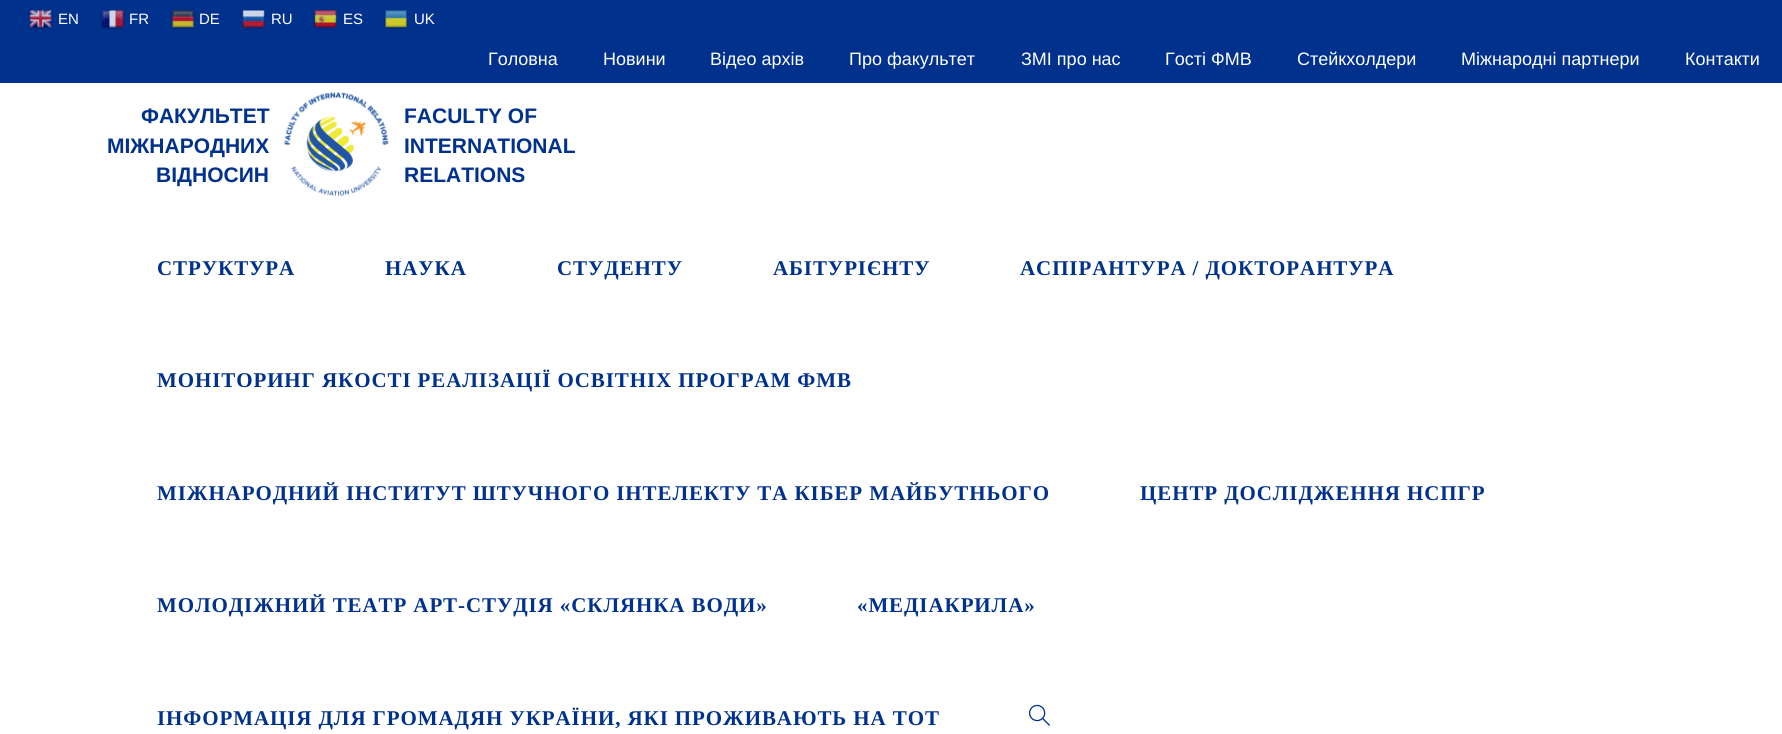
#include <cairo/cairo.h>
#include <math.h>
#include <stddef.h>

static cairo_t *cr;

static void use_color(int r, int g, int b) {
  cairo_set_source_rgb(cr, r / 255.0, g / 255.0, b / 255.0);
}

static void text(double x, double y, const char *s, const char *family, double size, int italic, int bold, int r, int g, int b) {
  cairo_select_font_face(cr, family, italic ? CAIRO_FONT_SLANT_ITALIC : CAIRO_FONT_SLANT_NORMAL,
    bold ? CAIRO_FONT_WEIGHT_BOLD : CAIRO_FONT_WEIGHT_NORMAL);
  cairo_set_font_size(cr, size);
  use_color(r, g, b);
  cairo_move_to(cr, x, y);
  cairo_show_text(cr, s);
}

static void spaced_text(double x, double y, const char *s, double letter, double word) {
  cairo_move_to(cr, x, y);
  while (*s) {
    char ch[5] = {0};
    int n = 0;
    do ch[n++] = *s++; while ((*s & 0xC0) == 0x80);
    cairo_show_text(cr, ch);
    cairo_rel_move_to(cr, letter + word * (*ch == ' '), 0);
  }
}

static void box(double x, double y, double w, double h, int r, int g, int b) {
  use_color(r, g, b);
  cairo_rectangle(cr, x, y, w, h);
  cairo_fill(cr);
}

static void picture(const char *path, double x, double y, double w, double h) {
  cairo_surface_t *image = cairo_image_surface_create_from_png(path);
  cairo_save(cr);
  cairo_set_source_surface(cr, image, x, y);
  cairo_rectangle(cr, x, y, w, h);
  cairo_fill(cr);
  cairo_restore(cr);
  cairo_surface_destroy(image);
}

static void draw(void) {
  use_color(255, 255, 255);
  cairo_paint(cr);
  box(0, 0, 1782, 83, 0, 49, 141);
  picture("img_01.png", 28, 9, 25, 21);
  picture("img_02.png", 100, 9, 25, 21);
  picture("img_03.png", 171, 9, 24, 21);
  picture("img_04.png", 241, 9, 25, 21);
  picture("img_05.png", 313, 9, 25, 21);
  picture("img_06.png", 384, 9, 24, 21);
  picture("img_07.png", 284, 92, 105, 104);
  picture("img_08.png", 1029, 704, 21, 22);
  text(58, 24, "EN", "Liberation Sans", 15, 0, 0, 255, 255, 255);
  text(129, 24, "FR", "Liberation Sans", 15, 0, 0, 255, 255, 255);
  text(199, 24, "DE", "Liberation Sans", 15, 0, 0, 255, 255, 255);
  text(271, 24, "RU", "Liberation Sans", 15, 0, 0, 255, 255, 255);
  text(343, 24, "ES", "Liberation Sans", 15, 0, 0, 255, 255, 255);
  text(414, 24, "UK", "Liberation Sans", 15, 0, 0, 255, 255, 255);
  text(488, 65, "Головна", "Liberation Sans", 18, 0, 0, 255, 255, 255);
  text(603, 65, "Новини", "Liberation Sans", 18, 0, 0, 255, 255, 255);
  text(710, 65, "Відео архів", "Liberation Sans", 18, 0, 0, 255, 255, 255);
  text(849, 65, "Про факультет", "Liberation Sans", 18, 0, 0, 255, 255, 255);
  text(1021, 65, "ЗМІ про нас", "Liberation Sans", 18, 0, 0, 255, 255, 255);
  text(1165, 65, "Гості ФМВ", "Liberation Sans", 18, 0, 0, 255, 255, 255);
  text(1297, 65, "Стейкхолдери", "Liberation Sans", 18, 0, 0, 255, 255, 255);
  text(1461, 65, "Міжнародні партнери", "Liberation Sans", 18, 0, 0, 255, 255, 255);
  text(1685, 65, "Контакти", "Liberation Sans", 18, 0, 0, 255, 255, 255);
  text(141, 123, "ФАКУЛЬТЕТ", "Liberation Sans", 21, 0, 1, 0, 49, 141);
  text(107, 153, "МІЖНАРОДНИХ", "Liberation Sans", 21, 0, 1, 0, 49, 141);
  text(156, 182, "ВІДНОСИН", "Liberation Sans", 21, 0, 1, 0, 49, 141);
  text(404, 123, "FACULTY OF", "Liberation Sans", 21, 0, 1, 0, 49, 141);
  text(404, 153, "INTERNATIONAL", "Liberation Sans", 21, 0, 1, 0, 49, 141);
  text(404, 182, "RELATIONS", "Liberation Sans", 21, 0, 1, 0, 49, 141);
  cairo_select_font_face(cr, "Liberation Serif", CAIRO_FONT_SLANT_NORMAL, CAIRO_FONT_WEIGHT_BOLD);
  spaced_text(157, 275, "СТРУКТУРА", 0.9, 0);
  spaced_text(385, 275, "НАУКА", 0.9, 0);
  spaced_text(557, 275, "СТУДЕНТУ", 0.9, 0);
  spaced_text(773, 275, "АБІТУРІЄНТУ", 0.9, 0);
  spaced_text(1020, 275, "АСПІРАНТУРА / ДОКТОРАНТУРА", 0.9, 0);
  spaced_text(157, 387, "МОНІТОРИНГ ЯКОСТІ РЕАЛІЗАЦІЇ ОСВІТНІХ ПРОГРАМ ФМВ", 0.9, 0);
  spaced_text(157, 500, "МІЖНАРОДНИЙ ІНСТИТУТ ШТУЧНОГО ІНТЕЛЕКТУ ТА КІБЕР МАЙБУТНЬОГО", 0.9, 0);
  spaced_text(1140, 500, "ЦЕНТР ДОСЛІДЖЕННЯ НСПГР", 0.9, 0);
  spaced_text(157, 612, "МОЛОДІЖНИЙ ТЕАТР АРТ-СТУДІЯ «СКЛЯНКА ВОДИ»", 0.9, 0);
  spaced_text(857, 612, "«МЕДІАКРИЛА»", 0.9, 0);
  spaced_text(157, 725, "ІНФОРМАЦІЯ ДЛЯ ГРОМАДЯН УКРАЇНИ, ЯКІ ПРОЖИВАЮТЬ НА ТОТ", 0.9, 0);
}

int main(void) {
  cairo_surface_t *surface = cairo_image_surface_create(CAIRO_FORMAT_RGB24, 1782, 734);
  cr = cairo_create(surface);
  cairo_font_options_t *options = cairo_font_options_create();
  cairo_font_options_set_hint_metrics(options, CAIRO_HINT_METRICS_OFF);
  cairo_font_options_set_hint_style(options, CAIRO_HINT_STYLE_NONE);
  cairo_set_font_options(cr, options);
  cairo_set_miter_limit(cr, 4);
  draw();
  cairo_surface_write_to_png(surface, "out.png");
  cairo_font_options_destroy(options);
  cairo_destroy(cr);
  cairo_surface_destroy(surface);
  return 0;
}
